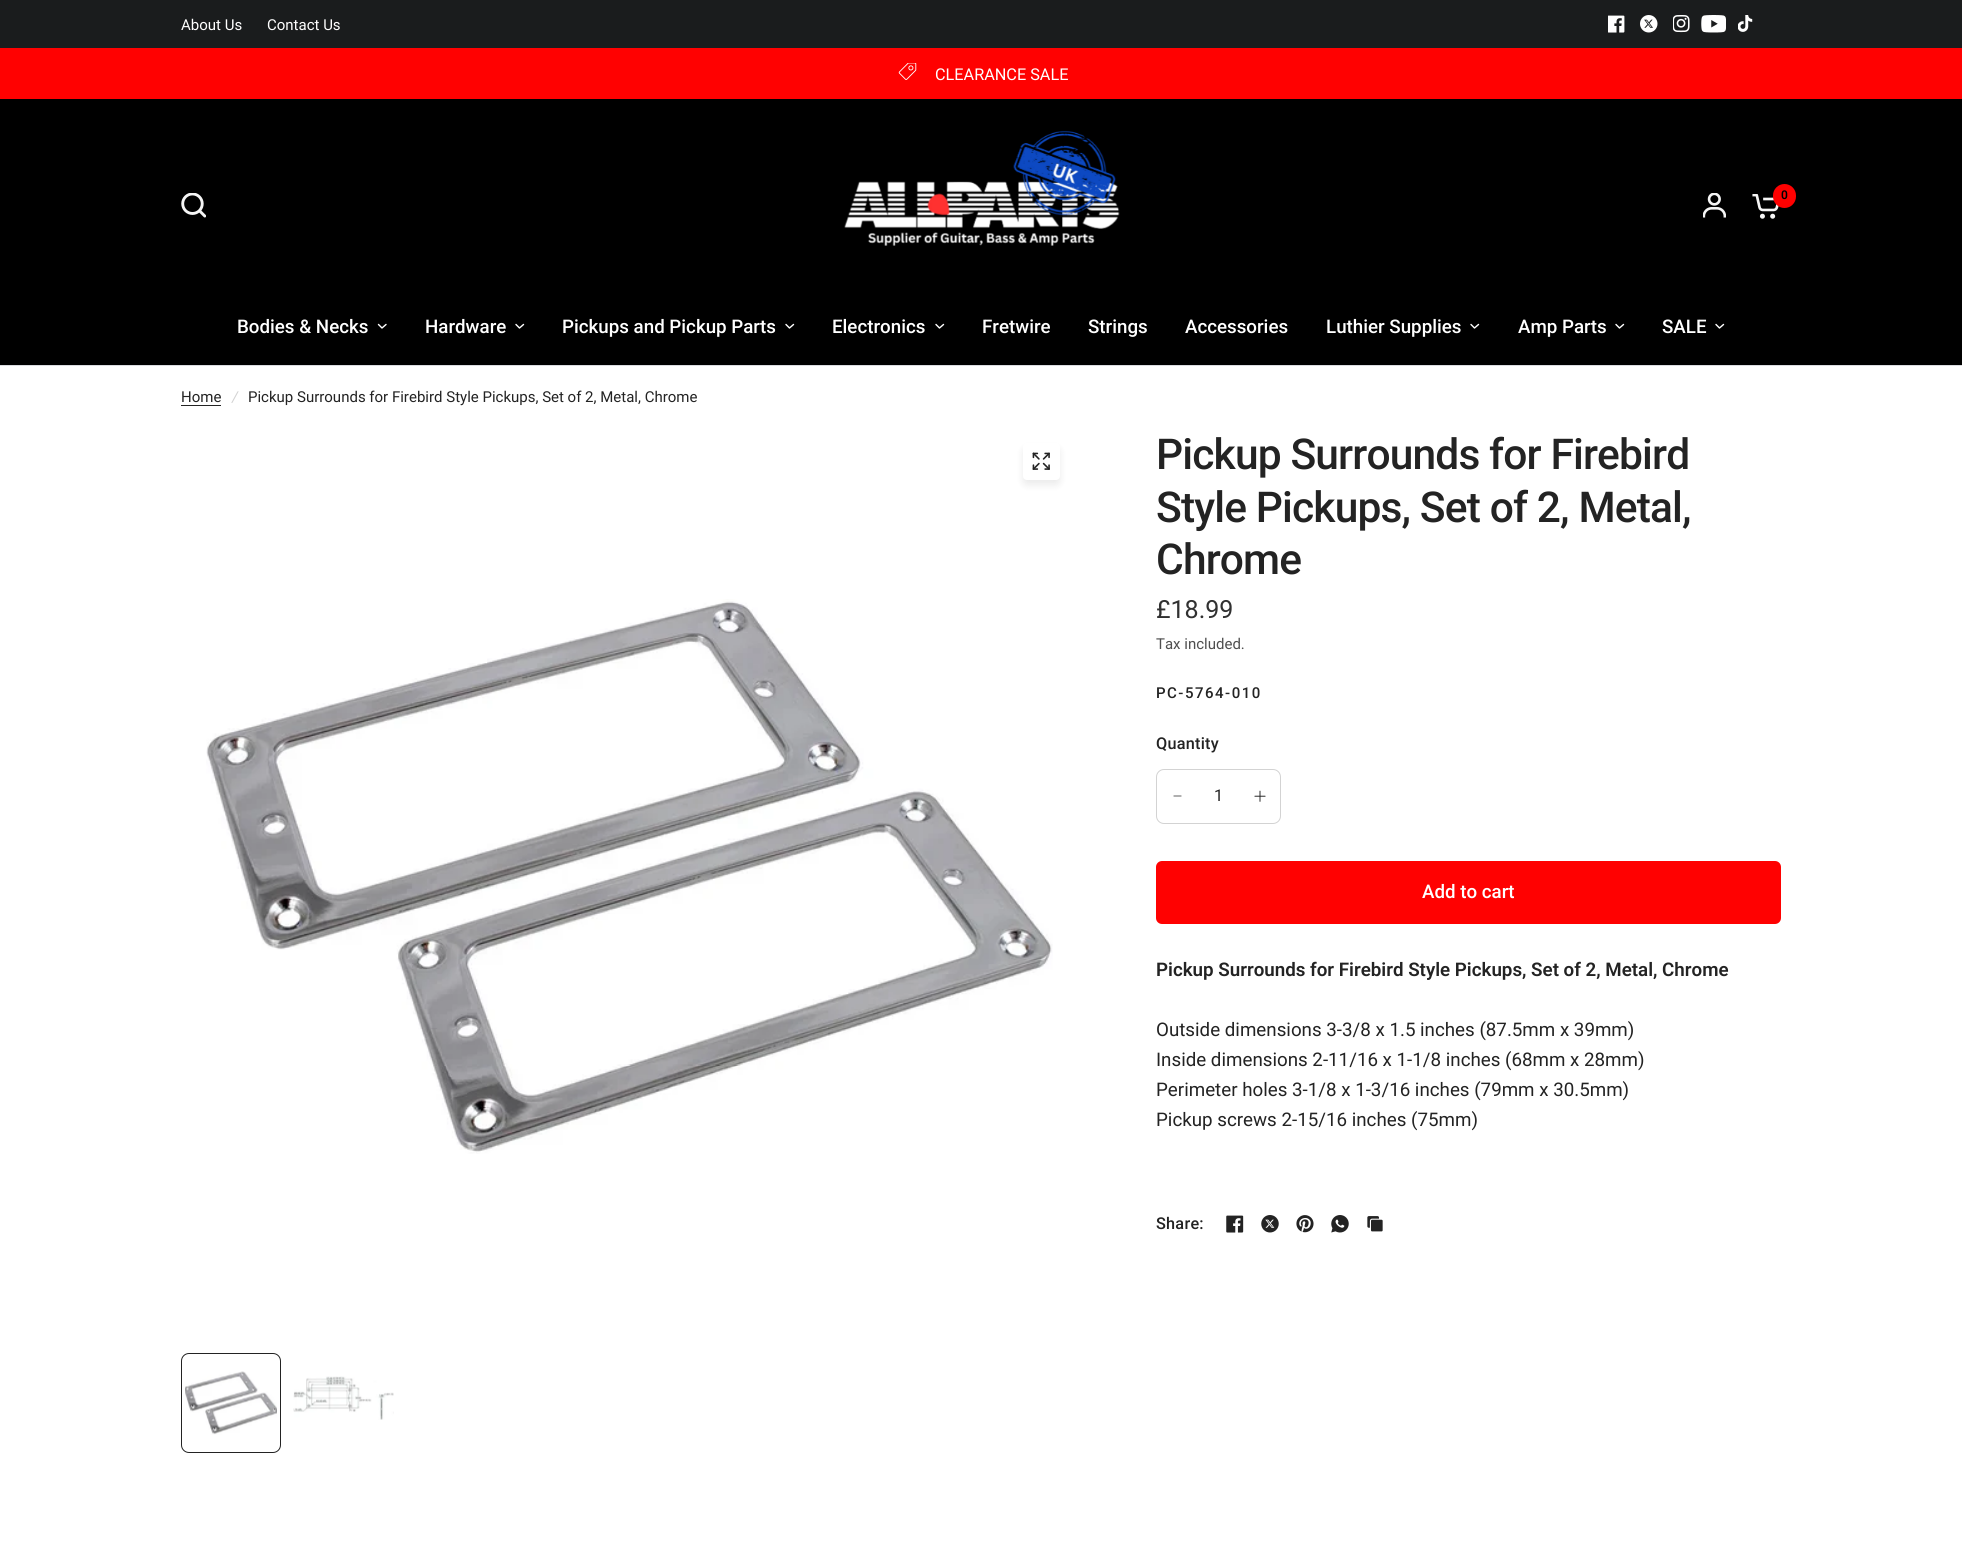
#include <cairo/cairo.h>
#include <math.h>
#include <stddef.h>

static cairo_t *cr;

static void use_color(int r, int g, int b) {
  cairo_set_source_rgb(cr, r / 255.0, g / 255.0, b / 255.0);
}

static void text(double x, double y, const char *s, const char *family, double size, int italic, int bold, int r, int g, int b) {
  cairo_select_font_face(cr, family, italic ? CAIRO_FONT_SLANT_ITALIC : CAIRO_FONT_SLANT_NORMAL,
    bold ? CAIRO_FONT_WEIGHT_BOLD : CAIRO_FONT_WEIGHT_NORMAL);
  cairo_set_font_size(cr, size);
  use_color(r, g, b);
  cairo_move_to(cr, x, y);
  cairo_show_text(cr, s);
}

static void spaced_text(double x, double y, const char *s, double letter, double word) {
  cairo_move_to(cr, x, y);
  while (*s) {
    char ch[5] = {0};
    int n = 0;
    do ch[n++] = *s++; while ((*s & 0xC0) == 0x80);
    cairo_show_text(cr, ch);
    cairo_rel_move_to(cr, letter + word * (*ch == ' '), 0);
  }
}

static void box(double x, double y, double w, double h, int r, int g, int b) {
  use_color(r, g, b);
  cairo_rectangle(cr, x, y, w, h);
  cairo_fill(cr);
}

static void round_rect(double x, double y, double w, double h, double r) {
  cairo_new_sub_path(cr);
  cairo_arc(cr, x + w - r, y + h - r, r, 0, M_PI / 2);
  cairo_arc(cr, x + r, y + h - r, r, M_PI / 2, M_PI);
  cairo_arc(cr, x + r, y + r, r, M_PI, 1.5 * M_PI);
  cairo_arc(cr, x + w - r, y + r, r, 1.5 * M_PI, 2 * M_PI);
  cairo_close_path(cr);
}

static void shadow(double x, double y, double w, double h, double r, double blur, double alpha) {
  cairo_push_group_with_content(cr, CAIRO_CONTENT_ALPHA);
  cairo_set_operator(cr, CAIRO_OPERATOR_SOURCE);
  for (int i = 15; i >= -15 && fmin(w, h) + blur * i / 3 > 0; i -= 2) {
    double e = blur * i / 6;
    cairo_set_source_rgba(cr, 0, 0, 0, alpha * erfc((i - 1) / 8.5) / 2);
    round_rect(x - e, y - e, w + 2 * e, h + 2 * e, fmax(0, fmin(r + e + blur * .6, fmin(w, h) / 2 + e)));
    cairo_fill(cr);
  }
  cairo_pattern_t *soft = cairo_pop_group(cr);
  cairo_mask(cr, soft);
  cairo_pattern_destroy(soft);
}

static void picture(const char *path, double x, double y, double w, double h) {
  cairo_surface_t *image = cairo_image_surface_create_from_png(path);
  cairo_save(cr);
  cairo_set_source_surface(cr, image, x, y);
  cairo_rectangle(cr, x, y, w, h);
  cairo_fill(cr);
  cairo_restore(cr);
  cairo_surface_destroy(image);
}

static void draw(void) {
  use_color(255, 255, 255);
  cairo_paint(cr);
  box(0, 0, 1962, 48, 26, 28, 29);
  picture("img_01.png", 1608, 15, 17, 18);
  picture("img_02.png", 1640, 15, 18, 18);
  picture("img_03.png", 1673, 15, 17, 18);
  picture("img_04.png", 1701, 15, 25, 18);
  picture("img_05.png", 1738, 15, 15, 17);
  box(0, 48, 1962, 51, 255, 1, 1);
  picture("img_06.png", 898, 63, 19, 17);
  box(0, 99, 1962, 266, 0, 0, 0);
  picture("img_07.png", 181, 193, 25, 25);
  picture("img_08.png", 844, 130, 276, 116);
  picture("img_09.png", 1703, 193, 23, 25);
  picture("img_10.png", 1752, 194, 27, 25);
  use_color(255, 1, 1);
  round_rect(1773, 184, 23, 24, 11.5);
  cairo_fill(cr);
  cairo_new_path(cr);
  cairo_move_to(cr, 386, 324.5);
  cairo_line_to(cr, 382, 328);
  cairo_line_to(cr, 378.5, 324.5);
  use_color(255, 255, 255);
  cairo_set_line_width(cr, 1.4);
  cairo_set_line_cap(cr, CAIRO_LINE_CAP_ROUND);
  cairo_set_line_join(cr, CAIRO_LINE_JOIN_ROUND);
  cairo_stroke(cr);
  cairo_new_path(cr);
  cairo_move_to(cr, 523.5, 324.5);
  cairo_line_to(cr, 519.5, 328);
  cairo_line_to(cr, 516, 324.5);
  cairo_stroke(cr);
  cairo_new_path(cr);
  cairo_move_to(cr, 793.5, 324.5);
  cairo_line_to(cr, 789.5, 328);
  cairo_line_to(cr, 786, 324.5);
  cairo_stroke(cr);
  cairo_new_path(cr);
  cairo_move_to(cr, 943.5, 324.5);
  cairo_line_to(cr, 939.5, 328);
  cairo_line_to(cr, 936, 324.5);
  cairo_stroke(cr);
  cairo_new_path(cr);
  cairo_move_to(cr, 1478.5, 324.5);
  cairo_line_to(cr, 1474.5, 328);
  cairo_line_to(cr, 1471, 324.5);
  cairo_stroke(cr);
  cairo_new_path(cr);
  cairo_move_to(cr, 1623.5, 324.5);
  cairo_line_to(cr, 1619.5, 328);
  cairo_line_to(cr, 1616, 324.5);
  cairo_stroke(cr);
  cairo_new_path(cr);
  cairo_move_to(cr, 1723.5, 324.5);
  cairo_line_to(cr, 1719.5, 328);
  cairo_line_to(cr, 1716, 324.5);
  cairo_stroke(cr);
  box(0, 365, 1962, 1, 218, 220, 224);
  box(181, 405, 40, 1, 35, 35, 35);
  use_color(0, 0, 0);
  shadow(1023, 448, 37, 37, 4, 4, 0.08);
  use_color(255, 255, 255);
  round_rect(1023, 443, 37, 37, 4);
  cairo_fill(cr);
  picture("img_11.png", 1032, 452, 18, 18);
  picture("img_12.png", 206, 599, 847, 555);
  picture("img_13.png", 185, 1371, 92, 64);
  round_rect(181.5, 1353.5, 99, 99, 7.5);
  use_color(35, 35, 35);
  cairo_set_line_width(cr, 1);
  cairo_set_line_cap(cr, CAIRO_LINE_CAP_BUTT);
  cairo_set_line_join(cr, CAIRO_LINE_JOIN_MITER);
  cairo_stroke(cr);
  picture("img_14.png", 293, 1376, 101, 44);
  round_rect(1156.5, 769.5, 124, 54, 7.5);
  use_color(211, 211, 211);
  cairo_stroke(cr);
  cairo_new_path(cr);
  cairo_move_to(cr, 1174, 796);
  cairo_line_to(cr, 1181, 796);
  use_color(123, 123, 123);
  cairo_set_line_width(cr, 1.2);
  cairo_set_line_cap(cr, CAIRO_LINE_CAP_ROUND);
  cairo_set_line_join(cr, CAIRO_LINE_JOIN_ROUND);
  cairo_stroke(cr);
  picture("img_15.png", 1254, 790, 12, 12);
  use_color(255, 1, 1);
  round_rect(1156, 861, 625, 63, 6);
  cairo_fill(cr);
  picture("img_16.png", 1226, 1215, 18, 18);
  picture("img_17.png", 1261, 1215, 18, 18);
  picture("img_18.png", 1296, 1215, 18, 18);
  picture("img_19.png", 1331, 1215, 18, 18);
  picture("img_20.png", 1367, 1216, 16, 16);
  text(181, 30, "About Us", "Roboto", 15, 0, 0, 255, 255, 255);
  text(267, 30, "Contact Us", "Roboto", 15, 0, 0, 255, 255, 255);
  text(935, 80, "CLEARANCE SALE", "Roboto", 16.25, 0, 0, 255, 255, 255);
  text(1781, 199, "0", "Roboto SemiBold", 12, 0, 0, 0, 0, 0);
  text(237, 333, "Bodies & Necks", "Roboto Medium", 18.75, 0, 0, 255, 255, 255);
  text(425, 333, "Hardware", "Roboto Medium", 18.75, 0, 0, 255, 255, 255);
  text(562, 333, "Pickups and Pickup Parts", "Roboto Medium", 18.75, 0, 0, 255, 255, 255);
  text(832, 333, "Electronics", "Roboto Medium", 18.75, 0, 0, 255, 255, 255);
  text(982, 333, "Fretwire", "Roboto Medium", 18.75, 0, 0, 255, 255, 255);
  text(1088, 333, "Strings", "Roboto Medium", 18.75, 0, 0, 255, 255, 255);
  text(1185, 333, "Accessories", "Roboto Medium", 18.75, 0, 0, 255, 255, 255);
  text(1326, 333, "Luthier Supplies", "Roboto Medium", 18.75, 0, 0, 255, 255, 255);
  text(1518, 333, "Amp Parts", "Roboto Medium", 18.75, 0, 0, 255, 255, 255);
  text(1662, 333, "SALE", "Roboto Medium", 18.75, 0, 0, 255, 255, 255);
  text(181, 402, "Home", "Roboto", 15, 0, 0, 35, 35, 35);
  text(232, 402, "/", "Roboto", 15, 1, 0, 211, 211, 211);
  text(248, 402, "Pickup Surrounds for Firebird Style Pickups, Set of 2, Metal, Chrome", "Roboto", 15, 0, 0, 35, 35, 35);
  cairo_select_font_face(cr, "Roboto Medium", CAIRO_FONT_SLANT_NORMAL, CAIRO_FONT_WEIGHT_NORMAL);
  cairo_set_font_size(cr, 42.5);
  spaced_text(1156, 469, "Pickup Surrounds for Firebird", -0.85, 0);
  spaced_text(1156, 522, "Style Pickups, Set of 2, Metal,", -0.85, 0);
  spaced_text(1156, 574, "Chrome", -0.85, 0);
  text(1156, 618, "£18.99", "Roboto", 25, 0, 0, 49, 49, 49);
  text(1156, 649, "Tax included.", "Roboto", 15, 0, 0, 79, 79, 79);
  cairo_select_font_face(cr, "Roboto Medium", CAIRO_FONT_SLANT_NORMAL, CAIRO_FONT_WEIGHT_NORMAL);
  use_color(35, 35, 35);
  spaced_text(1156, 698, "PC-5764-010", 1.5, 0);
  cairo_set_font_size(cr, 16.25);
  spaced_text(1156, 749, "Quantity", 0.25, 0);
  text(1214, 801, "1", "Roboto", 16.25, 0, 0, 35, 35, 35);
  text(1422, 898, "Add to cart", "Roboto Medium", 18.75, 0, 0, 255, 255, 255);
  text(1156, 976, "Pickup Surrounds for Firebird Style Pickups, Set of 2, Metal, Chrome", "Roboto SemiBold", 18.75, 0, 0, 35, 35, 35);
  text(1156, 1036, "Outside dimensions 3-3/8 x 1.5 inches (87.5mm x 39mm)", "Roboto", 18.75, 0, 0, 35, 35, 35);
  text(1156, 1066, "Inside dimensions 2-11/16 x 1-1/8 inches (68mm x 28mm)", "Roboto", 18.75, 0, 0, 35, 35, 35);
  text(1156, 1096, "Perimeter holes 3-1/8 x 1-3/16 inches (79mm x 30.5mm)", "Roboto", 18.75, 0, 0, 35, 35, 35);
  text(1156, 1126, "Pickup screws 2-15/16 inches (75mm)", "Roboto", 18.75, 0, 0, 35, 35, 35);
  cairo_select_font_face(cr, "Roboto Medium", CAIRO_FONT_SLANT_NORMAL, CAIRO_FONT_WEIGHT_NORMAL);
  cairo_set_font_size(cr, 16.25);
  spaced_text(1156, 1229, "Share:", 0.25, 0);
}

int main(void) {
  cairo_surface_t *surface = cairo_image_surface_create(CAIRO_FORMAT_RGB24, 1962, 1548);
  cr = cairo_create(surface);
  cairo_font_options_t *options = cairo_font_options_create();
  cairo_font_options_set_hint_metrics(options, CAIRO_HINT_METRICS_OFF);
  cairo_font_options_set_hint_style(options, CAIRO_HINT_STYLE_NONE);
  cairo_set_font_options(cr, options);
  cairo_set_miter_limit(cr, 4);
  draw();
  cairo_surface_write_to_png(surface, "out.png");
  cairo_font_options_destroy(options);
  cairo_destroy(cr);
  cairo_surface_destroy(surface);
  return 0;
}
